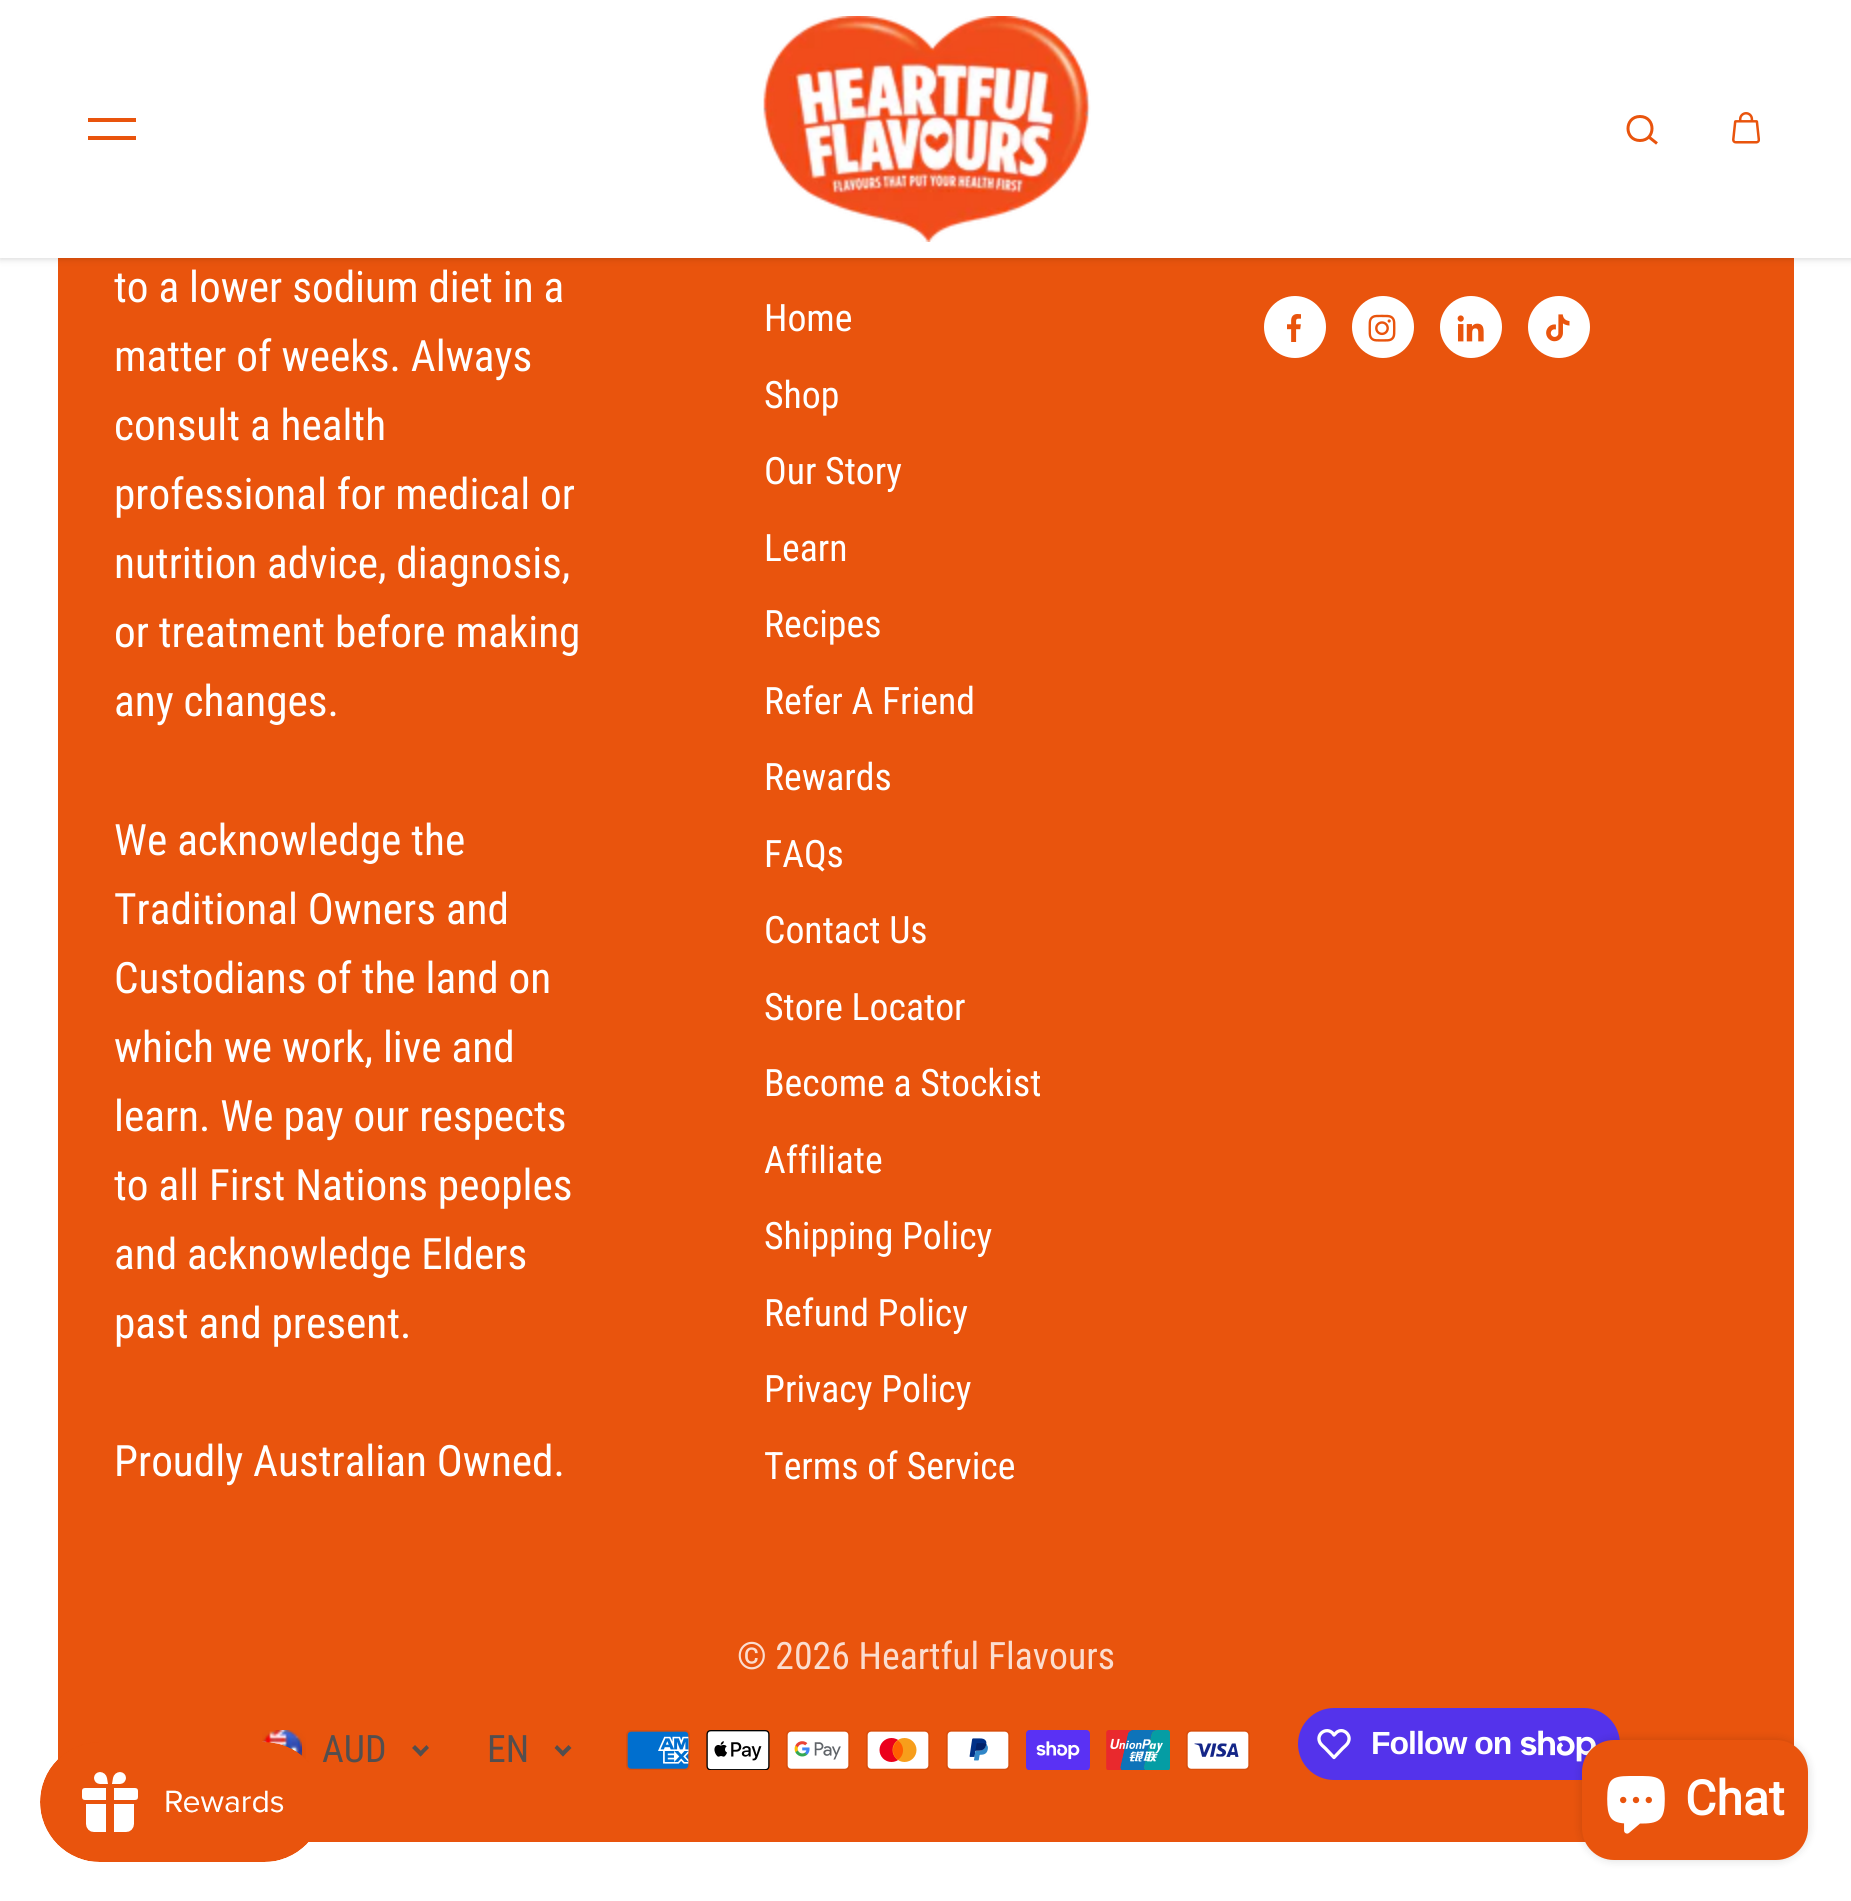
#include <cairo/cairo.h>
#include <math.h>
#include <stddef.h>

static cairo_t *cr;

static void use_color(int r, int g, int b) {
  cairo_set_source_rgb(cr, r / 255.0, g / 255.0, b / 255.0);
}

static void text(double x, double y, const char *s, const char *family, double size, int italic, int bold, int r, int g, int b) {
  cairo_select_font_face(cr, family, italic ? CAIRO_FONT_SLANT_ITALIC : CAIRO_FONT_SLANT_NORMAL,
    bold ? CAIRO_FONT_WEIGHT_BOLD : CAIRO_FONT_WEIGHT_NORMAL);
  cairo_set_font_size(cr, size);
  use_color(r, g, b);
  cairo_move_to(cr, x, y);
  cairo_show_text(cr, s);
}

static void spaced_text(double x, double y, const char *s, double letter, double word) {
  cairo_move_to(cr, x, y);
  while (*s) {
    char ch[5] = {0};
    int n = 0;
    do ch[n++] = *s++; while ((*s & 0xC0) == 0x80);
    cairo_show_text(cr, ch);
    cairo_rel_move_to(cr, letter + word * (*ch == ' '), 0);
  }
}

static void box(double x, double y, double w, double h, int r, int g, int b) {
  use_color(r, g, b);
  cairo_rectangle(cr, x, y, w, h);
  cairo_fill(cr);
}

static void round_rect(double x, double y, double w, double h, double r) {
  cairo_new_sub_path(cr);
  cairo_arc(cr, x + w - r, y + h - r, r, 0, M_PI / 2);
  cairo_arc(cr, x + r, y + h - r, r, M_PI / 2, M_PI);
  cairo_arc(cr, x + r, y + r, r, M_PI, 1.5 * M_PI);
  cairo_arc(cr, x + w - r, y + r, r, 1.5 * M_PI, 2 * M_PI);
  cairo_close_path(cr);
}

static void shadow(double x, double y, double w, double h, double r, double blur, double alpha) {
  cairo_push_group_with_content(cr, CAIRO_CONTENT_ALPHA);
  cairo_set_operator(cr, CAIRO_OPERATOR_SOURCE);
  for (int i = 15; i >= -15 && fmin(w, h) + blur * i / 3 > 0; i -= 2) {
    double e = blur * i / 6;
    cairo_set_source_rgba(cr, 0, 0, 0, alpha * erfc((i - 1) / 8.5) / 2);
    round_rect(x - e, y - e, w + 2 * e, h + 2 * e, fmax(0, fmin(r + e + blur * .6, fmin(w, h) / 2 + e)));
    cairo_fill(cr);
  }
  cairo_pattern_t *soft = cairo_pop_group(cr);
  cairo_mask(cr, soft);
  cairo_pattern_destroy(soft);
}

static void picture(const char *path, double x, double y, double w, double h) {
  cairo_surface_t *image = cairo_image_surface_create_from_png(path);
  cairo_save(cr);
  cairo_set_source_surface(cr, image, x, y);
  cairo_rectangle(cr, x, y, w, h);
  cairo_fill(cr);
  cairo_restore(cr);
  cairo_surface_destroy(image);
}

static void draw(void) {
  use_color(255, 255, 255);
  cairo_paint(cr);
  box(58, 258, 1736, 1584, 233, 84, 13);
  use_color(0, 0, 0);
  shadow(0, 0, 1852, 258, 0, 4, 0.21);
  box(0, 0, 1851, 258, 255, 255, 255);
  box(88, 118, 48, 4, 233, 84, 13);
  box(88, 136, 48, 4, 233, 84, 13);
  picture("img_01.png", 763, 16, 328, 226);
  cairo_new_path(cr);
  cairo_move_to(cr, 1640, 140.5);
  cairo_curve_to(cr, 1656, 140.5, 1656, 116.5, 1640, 116.5);
  cairo_curve_to(cr, 1624, 116.5, 1624, 140.5, 1640, 140.5);
  cairo_close_path(cr);
  cairo_move_to(cr, 1649.5, 137.5);
  cairo_line_to(cr, 1657, 143.5);
  cairo_set_line_width(cr, 3);
  cairo_stroke(cr);
  picture("img_02.png", 1732, 112, 28, 32);
  use_color(255, 255, 255);
  cairo_arc(cr, 1295, 327, 31, 0, 2 * M_PI);
  cairo_fill(cr);
  picture("img_03.png", 1287, 314, 14, 28);
  cairo_arc(cr, 1383, 327, 31, 0, 2 * M_PI);
  cairo_fill(cr);
  picture("img_04.png", 1368, 314, 28, 28);
  cairo_arc(cr, 1471, 327, 31, 0, 2 * M_PI);
  cairo_fill(cr);
  picture("img_05.png", 1457, 315, 27, 27);
  cairo_arc(cr, 1559, 327, 31, 0, 2 * M_PI);
  cairo_fill(cr);
  picture("img_06.png", 1546, 314, 24, 28);
  picture("img_07.png", 262, 1730, 44, 29);
  use_color(83, 78, 78);
  cairo_new_path(cr);
  cairo_move_to(cr, 426.5, 1745);
  cairo_line_to(cr, 429, 1748);
  cairo_line_to(cr, 420.5, 1756.5);
  cairo_line_to(cr, 418, 1753.5);
  cairo_close_path(cr);
  cairo_fill(cr);
  cairo_new_path(cr);
  cairo_move_to(cr, 415, 1745);
  cairo_line_to(cr, 423.5, 1753.5);
  cairo_line_to(cr, 420.5, 1756.5);
  cairo_line_to(cr, 412, 1748);
  cairo_close_path(cr);
  cairo_fill(cr);
  cairo_new_path(cr);
  cairo_move_to(cr, 568.5, 1745);
  cairo_line_to(cr, 571.5, 1748);
  cairo_line_to(cr, 563, 1756.5);
  cairo_line_to(cr, 560, 1753.5);
  cairo_close_path(cr);
  cairo_fill(cr);
  cairo_new_path(cr);
  cairo_move_to(cr, 557, 1745);
  cairo_line_to(cr, 565.5, 1753.5);
  cairo_line_to(cr, 563, 1756.5);
  cairo_line_to(cr, 554.5, 1748);
  cairo_close_path(cr);
  cairo_fill(cr);
  picture("img_08.png", 626, 1730, 64, 40);
  picture("img_09.png", 706, 1730, 64, 40);
  picture("img_10.png", 786, 1730, 64, 40);
  picture("img_11.png", 866, 1730, 64, 40);
  picture("img_12.png", 946, 1730, 64, 40);
  picture("img_13.png", 1026, 1730, 64, 40);
  picture("img_14.png", 1106, 1730, 64, 40);
  picture("img_15.png", 1186, 1730, 64, 40);
  use_color(84, 51, 235);
  round_rect(1298, 1708, 322, 72, 36);
  cairo_fill(cr);
  cairo_new_path(cr);
  cairo_move_to(cr, 1332.5, 1733);
  cairo_line_to(cr, 1334, 1735);
  cairo_curve_to(cr, 1335.5, 1733.5, 1337, 1731.5, 1339, 1731);
  cairo_curve_to(cr, 1345, 1729, 1351, 1735.5, 1348.5, 1741.5);
  cairo_curve_to(cr, 1347.5, 1744.5, 1344.5, 1746.5, 1342.5, 1748.5);
  cairo_line_to(cr, 1334, 1757.5);
  cairo_line_to(cr, 1325.5, 1748.5);
  cairo_curve_to(cr, 1323.5, 1746.5, 1320.5, 1744.5, 1319.5, 1741.5);
  cairo_curve_to(cr, 1316.5, 1733.5, 1326.5, 1727, 1332.5, 1733);
  cairo_close_path(cr);
  use_color(255, 255, 255);
  cairo_set_line_width(cr, 3.3);
  cairo_set_line_join(cr, CAIRO_LINE_JOIN_ROUND);
  cairo_stroke(cr);
  picture("img_16.png", 1521, 1730, 75, 32);
  picture("img_17.png", 40, 1742, 269, 120);
  use_color(0, 0, 0);
  shadow(1582, 1740, 226, 120, 32, 5, 0.15);
  use_color(233, 84, 13);
  round_rect(1582, 1740, 226, 120, 32);
  cairo_fill(cr);
  picture("img_18.png", 1607, 1776, 58, 58);
  text(114, 302, "to a lower sodium diet in a", "Roboto Condensed", 43.25, 0, 0, 255, 255, 255);
  text(114, 371, "matter of weeks. Always", "Roboto Condensed", 43.25, 0, 0, 255, 255, 255);
  text(114, 440, "consult a health", "Roboto Condensed", 43.25, 0, 0, 255, 255, 255);
  text(114, 509, "professional for medical or", "Roboto Condensed", 43.25, 0, 0, 255, 255, 255);
  text(114, 578, "nutrition advice, diagnosis,", "Roboto Condensed", 43.25, 0, 0, 255, 255, 255);
  text(114, 647, "or treatment before making", "Roboto Condensed", 43.25, 0, 0, 255, 255, 255);
  text(114, 716, "any changes.", "Roboto Condensed", 43.25, 0, 0, 255, 255, 255);
  text(114, 855, "We acknowledge the", "Roboto Condensed", 43.25, 0, 0, 255, 255, 255);
  text(114, 924, "Traditional Owners and", "Roboto Condensed", 43.25, 0, 0, 255, 255, 255);
  text(114, 993, "Custodians of the land on", "Roboto Condensed", 43.25, 0, 0, 255, 255, 255);
  text(114, 1062, "which we work, live and", "Roboto Condensed", 43.25, 0, 0, 255, 255, 255);
  text(114, 1131, "learn. We pay our respects", "Roboto Condensed", 43.25, 0, 0, 255, 255, 255);
  text(114, 1200, "to all First Nations peoples", "Roboto Condensed", 43.25, 0, 0, 255, 255, 255);
  text(114, 1269, "and acknowledge Elders", "Roboto Condensed", 43.25, 0, 0, 255, 255, 255);
  text(114, 1338, "past and present.", "Roboto Condensed", 43.25, 0, 0, 255, 255, 255);
  text(114, 1476, "Proudly Australian Owned.", "Roboto Condensed", 43.25, 0, 0, 255, 255, 255);
  text(764, 331, "Home", "Roboto Condensed", 37.75, 0, 0, 255, 255, 255);
  text(764, 408, "Shop", "Roboto Condensed", 37.75, 0, 0, 255, 255, 255);
  text(764, 484, "Our Story", "Roboto Condensed", 37.75, 0, 0, 255, 255, 255);
  text(764, 561, "Learn", "Roboto Condensed", 37.75, 0, 0, 255, 255, 255);
  text(764, 637, "Recipes", "Roboto Condensed", 37.75, 0, 0, 255, 255, 255);
  text(764, 714, "Refer A Friend", "Roboto Condensed", 37.75, 0, 0, 255, 255, 255);
  text(764, 790, "Rewards", "Roboto Condensed", 37.75, 0, 0, 255, 255, 255);
  text(764, 867, "FAQs", "Roboto Condensed", 37.75, 0, 0, 255, 255, 255);
  text(764, 943, "Contact Us", "Roboto Condensed", 37.75, 0, 0, 255, 255, 255);
  text(764, 1020, "Store Locator", "Roboto Condensed", 37.75, 0, 0, 255, 255, 255);
  text(764, 1096, "Become a Stockist", "Roboto Condensed", 37.75, 0, 0, 255, 255, 255);
  text(764, 1173, "Affiliate", "Roboto Condensed", 37.75, 0, 0, 255, 255, 255);
  text(764, 1249, "Shipping Policy", "Roboto Condensed", 37.75, 0, 0, 255, 255, 255);
  text(764, 1326, "Refund Policy", "Roboto Condensed", 37.75, 0, 0, 255, 255, 255);
  text(764, 1402, "Privacy Policy", "Roboto Condensed", 37.75, 0, 0, 255, 255, 255);
  text(764, 1479, "Terms of Service", "Roboto Condensed", 37.75, 0, 0, 255, 255, 255);
  text(737, 1669, "© 2026 Heartful Flavours", "Roboto Condensed", 37.75, 0, 0, 251, 221, 207);
  text(322, 1762, "AUD", "Roboto Condensed", 37.75, 0, 0, 83, 78, 78);
  text(487, 1762, "EN", "Roboto Condensed", 37.75, 0, 0, 83, 78, 78);
  cairo_select_font_face(cr, "Liberation Sans", CAIRO_FONT_SLANT_NORMAL, CAIRO_FONT_WEIGHT_BOLD);
  cairo_set_font_size(cr, 32);
  use_color(255, 255, 255);
  spaced_text(1371, 1754, "Follow on", -1, 0);
  text(1685, 1815, "Chat", "Roboto", 48, 0, 1, 255, 255, 255);
}

int main(void) {
  cairo_surface_t *surface = cairo_image_surface_create(CAIRO_FORMAT_RGB24, 1851, 1901);
  cr = cairo_create(surface);
  cairo_font_options_t *options = cairo_font_options_create();
  cairo_font_options_set_hint_metrics(options, CAIRO_HINT_METRICS_OFF);
  cairo_font_options_set_hint_style(options, CAIRO_HINT_STYLE_NONE);
  cairo_set_font_options(cr, options);
  cairo_set_miter_limit(cr, 4);
  draw();
  cairo_surface_write_to_png(surface, "out.png");
  cairo_font_options_destroy(options);
  cairo_destroy(cr);
  cairo_surface_destroy(surface);
  return 0;
}
